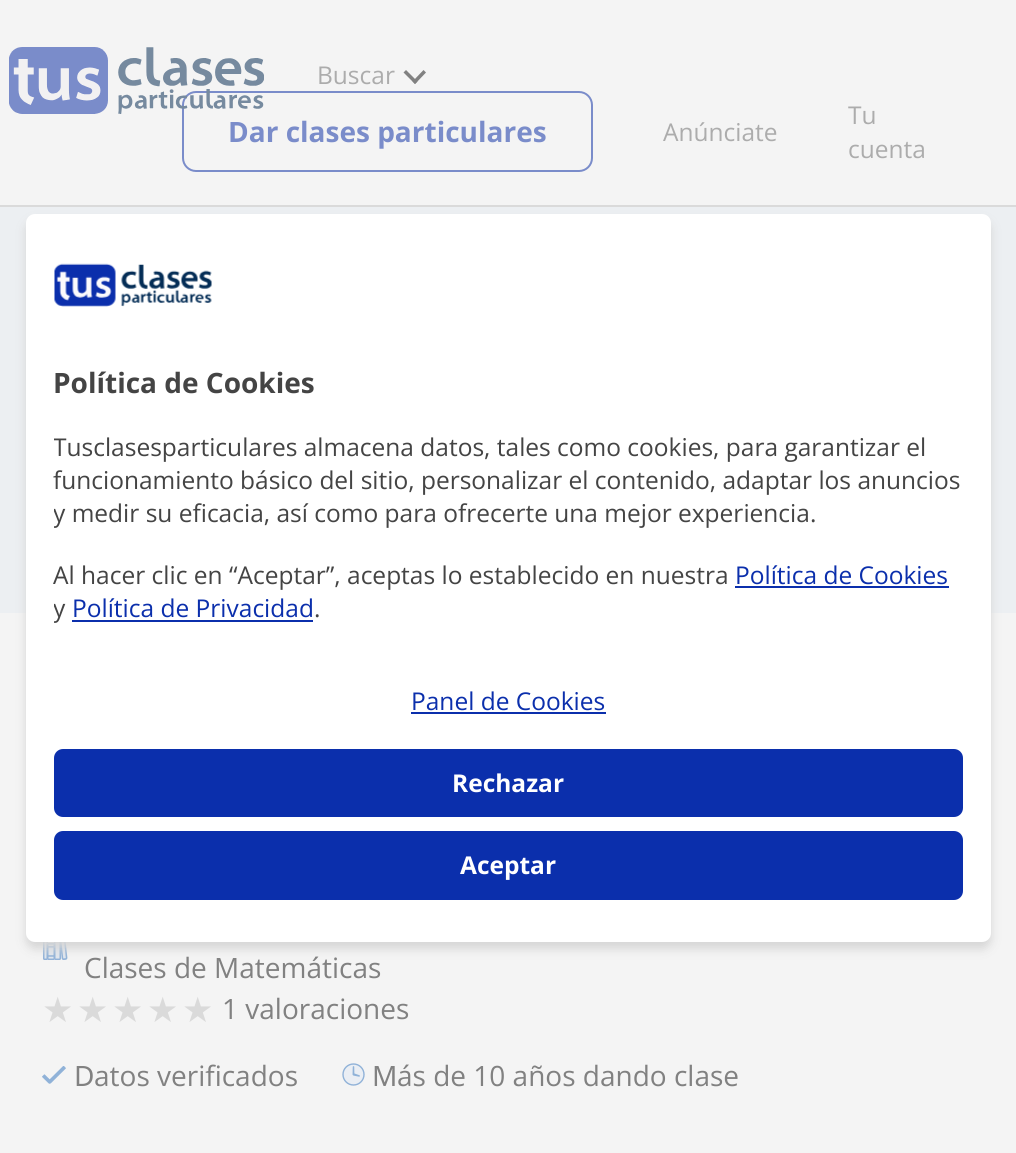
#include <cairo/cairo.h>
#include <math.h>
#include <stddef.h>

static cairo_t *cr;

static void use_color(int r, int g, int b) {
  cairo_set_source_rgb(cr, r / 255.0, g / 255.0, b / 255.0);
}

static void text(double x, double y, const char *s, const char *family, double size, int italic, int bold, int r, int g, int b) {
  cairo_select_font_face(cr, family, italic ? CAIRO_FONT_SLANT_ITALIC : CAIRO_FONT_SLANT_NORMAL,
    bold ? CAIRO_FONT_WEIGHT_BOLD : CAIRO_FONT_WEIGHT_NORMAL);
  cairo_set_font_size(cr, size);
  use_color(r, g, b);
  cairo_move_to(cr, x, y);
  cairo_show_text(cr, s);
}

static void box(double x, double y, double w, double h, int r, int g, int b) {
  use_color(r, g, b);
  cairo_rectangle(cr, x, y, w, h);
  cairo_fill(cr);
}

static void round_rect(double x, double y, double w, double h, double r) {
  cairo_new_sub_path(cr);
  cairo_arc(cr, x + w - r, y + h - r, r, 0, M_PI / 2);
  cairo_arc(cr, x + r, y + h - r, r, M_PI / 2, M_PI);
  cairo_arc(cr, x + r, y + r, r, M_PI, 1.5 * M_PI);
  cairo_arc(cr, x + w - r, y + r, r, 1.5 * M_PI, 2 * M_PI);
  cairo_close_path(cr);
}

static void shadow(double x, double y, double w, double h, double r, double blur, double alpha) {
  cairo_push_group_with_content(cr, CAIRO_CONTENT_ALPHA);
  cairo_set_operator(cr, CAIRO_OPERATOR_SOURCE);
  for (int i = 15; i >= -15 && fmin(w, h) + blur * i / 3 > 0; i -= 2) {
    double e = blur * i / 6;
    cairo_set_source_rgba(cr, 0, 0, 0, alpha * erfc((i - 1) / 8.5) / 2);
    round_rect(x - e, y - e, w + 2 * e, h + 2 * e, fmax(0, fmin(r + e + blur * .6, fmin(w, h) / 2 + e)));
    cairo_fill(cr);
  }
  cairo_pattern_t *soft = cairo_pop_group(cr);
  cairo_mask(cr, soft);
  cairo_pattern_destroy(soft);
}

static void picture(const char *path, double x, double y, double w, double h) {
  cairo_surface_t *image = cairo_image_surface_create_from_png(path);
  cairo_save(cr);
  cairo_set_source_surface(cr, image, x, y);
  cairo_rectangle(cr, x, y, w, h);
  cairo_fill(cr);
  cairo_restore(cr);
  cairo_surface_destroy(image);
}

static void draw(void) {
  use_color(244, 244, 244);
  cairo_paint(cr);
  box(0, 205, 1016, 2, 218, 218, 218);
  round_rect(183, 92, 409, 79, 13);
  use_color(122, 140, 202);
  cairo_stroke(cr);
  picture("img_01.png", 9, 47, 255, 67);
  use_color(129, 129, 129);
  cairo_new_path(cr);
  cairo_move_to(cr, 412.5, 81.5);
  cairo_line_to(cr, 423.5, 70);
  cairo_line_to(cr, 426, 72.5);
  cairo_line_to(cr, 415, 84);
  cairo_close_path(cr);
  cairo_fill(cr);
  cairo_new_path(cr);
  cairo_move_to(cr, 403.5, 72.5);
  cairo_line_to(cr, 406, 70);
  cairo_line_to(cr, 417.5, 81.5);
  cairo_line_to(cr, 415, 84);
  cairo_close_path(cr);
  cairo_fill(cr);
  box(0, 207, 1016, 406, 236, 239, 242);
  picture("img_02.png", 43, 942, 25, 18);
  picture("img_03.png", 42, 1066, 24, 18);
  picture("img_04.png", 342, 1063, 23, 23);
  use_color(214, 214, 214);
  shadow(26, 221, 965, 728, 9, 5, 1);
  use_color(255, 255, 255);
  round_rect(26, 214, 965, 728, 9);
  cairo_fill(cr);
  picture("img_05.png", 54, 263, 158, 44);
  box(735, 586, 214, 2, 11, 47, 172);
  box(72, 620, 241, 2, 11, 47, 172);
  box(411, 712, 195, 2, 11, 47, 172);
  round_rect(54, 749, 909, 68, 9);
  cairo_fill(cr);
  round_rect(54, 831, 909, 69, 9);
  cairo_fill(cr);
  text(317, 84, "Buscar", "Open Sans", 24.5, 0, 0, 172, 172, 172);
  text(228, 142, "Dar clases particulares", "Open Sans", 28, 0, 1, 122, 140, 202);
  text(663, 141, "Anúnciate", "Open Sans", 24.5, 0, 0, 172, 172, 172);
  text(848, 124, "Tu", "Open Sans", 24.5, 0, 0, 172, 172, 172);
  text(848, 158, "cuenta", "Open Sans", 24.5, 0, 0, 172, 172, 172);
  text(84, 978, "Clases de Matemáticas", "Open Sans", 28, 0, 0, 129, 129, 129);
  text(42, 1022, "★", "DejaVu Sans", 35, 0, 0, 218, 218, 218);
  text(77, 1022, "★", "DejaVu Sans", 35, 0, 0, 218, 218, 218);
  text(112, 1022, "★", "DejaVu Sans", 35, 0, 0, 218, 218, 218);
  text(147, 1022, "★", "DejaVu Sans", 35, 0, 0, 218, 218, 218);
  text(182, 1022, "★", "DejaVu Sans", 35, 0, 0, 218, 218, 218);
  text(222, 1019, "1 valoraciones", "Open Sans", 28, 0, 0, 129, 129, 129);
  text(74, 1086, "D", "Noto Sans", 28, 0, 0, 129, 129, 129);
  text(94, 1086, "atos verificados", "Open Sans", 28, 0, 0, 129, 129, 129);
  text(372, 1086, "M", "Noto Sans", 28, 0, 0, 129, 129, 129);
  text(397, 1086, "ás de 10 años dando clase", "Open Sans", 28, 0, 0, 129, 129, 129);
  text(53, 393, "Política de Cookies", "Open Sans", 28, 0, 1, 68, 68, 68);
  cairo_save(cr);
  cairo_rectangle(cr, 54, 364, 909, 261);
  cairo_clip(cr);
  text(53, 456, "Tusclasesparticulares almacena datos, tales como cookies, para garantizar el", "Open Sans", 24.5, 0, 0, 68, 68, 68);
  cairo_restore(cr);
  text(53, 489, "funcionamiento básico del sitio, personalizar el contenido, adaptar los anuncios", "Open Sans", 24.5, 0, 0, 68, 68, 68);
  cairo_save(cr);
  cairo_rectangle(cr, 54, 364, 909, 261);
  cairo_clip(cr);
  text(53, 522, "y medir su eficacia, así como para ofrecerte una mejor experiencia.", "Open Sans", 24.5, 0, 0, 68, 68, 68);
  cairo_restore(cr);
  text(53, 584, "Al hacer clic en “Aceptar”, aceptas lo establecido en nuestra", "Open Sans", 24.5, 0, 0, 68, 68, 68);
  text(735, 584, "Política de Cookies", "Open Sans", 24.5, 0, 0, 11, 47, 172);
  cairo_save(cr);
  cairo_rectangle(cr, 54, 364, 909, 261);
  cairo_clip(cr);
  text(53, 617, "y", "Open Sans", 24.5, 0, 0, 68, 68, 68);
  cairo_restore(cr);
  text(72, 617, "Política de Privacidad", "Open Sans", 24.5, 0, 0, 11, 47, 172);
  text(314, 617, ".", "Open Sans", 24.5, 0, 0, 68, 68, 68);
  text(411, 710, "Panel de Cookies", "Open Sans", 24.5, 0, 0, 11, 47, 172);
  text(452, 792, "Rechazar", "Open Sans", 24.5, 0, 1, 255, 255, 255);
  text(460, 874, "Aceptar", "Open Sans", 24.5, 0, 1, 255, 255, 255);
}

int main(void) {
  cairo_surface_t *surface = cairo_image_surface_create(CAIRO_FORMAT_RGB24, 1016, 1153);
  cr = cairo_create(surface);
  cairo_font_options_t *options = cairo_font_options_create();
  cairo_font_options_set_hint_metrics(options, CAIRO_HINT_METRICS_OFF);
  cairo_font_options_set_hint_style(options, CAIRO_HINT_STYLE_NONE);
  cairo_set_font_options(cr, options);
  cairo_set_miter_limit(cr, 4);
  draw();
  cairo_surface_write_to_png(surface, "out.png");
  cairo_font_options_destroy(options);
  cairo_destroy(cr);
  cairo_surface_destroy(surface);
  return 0;
}
